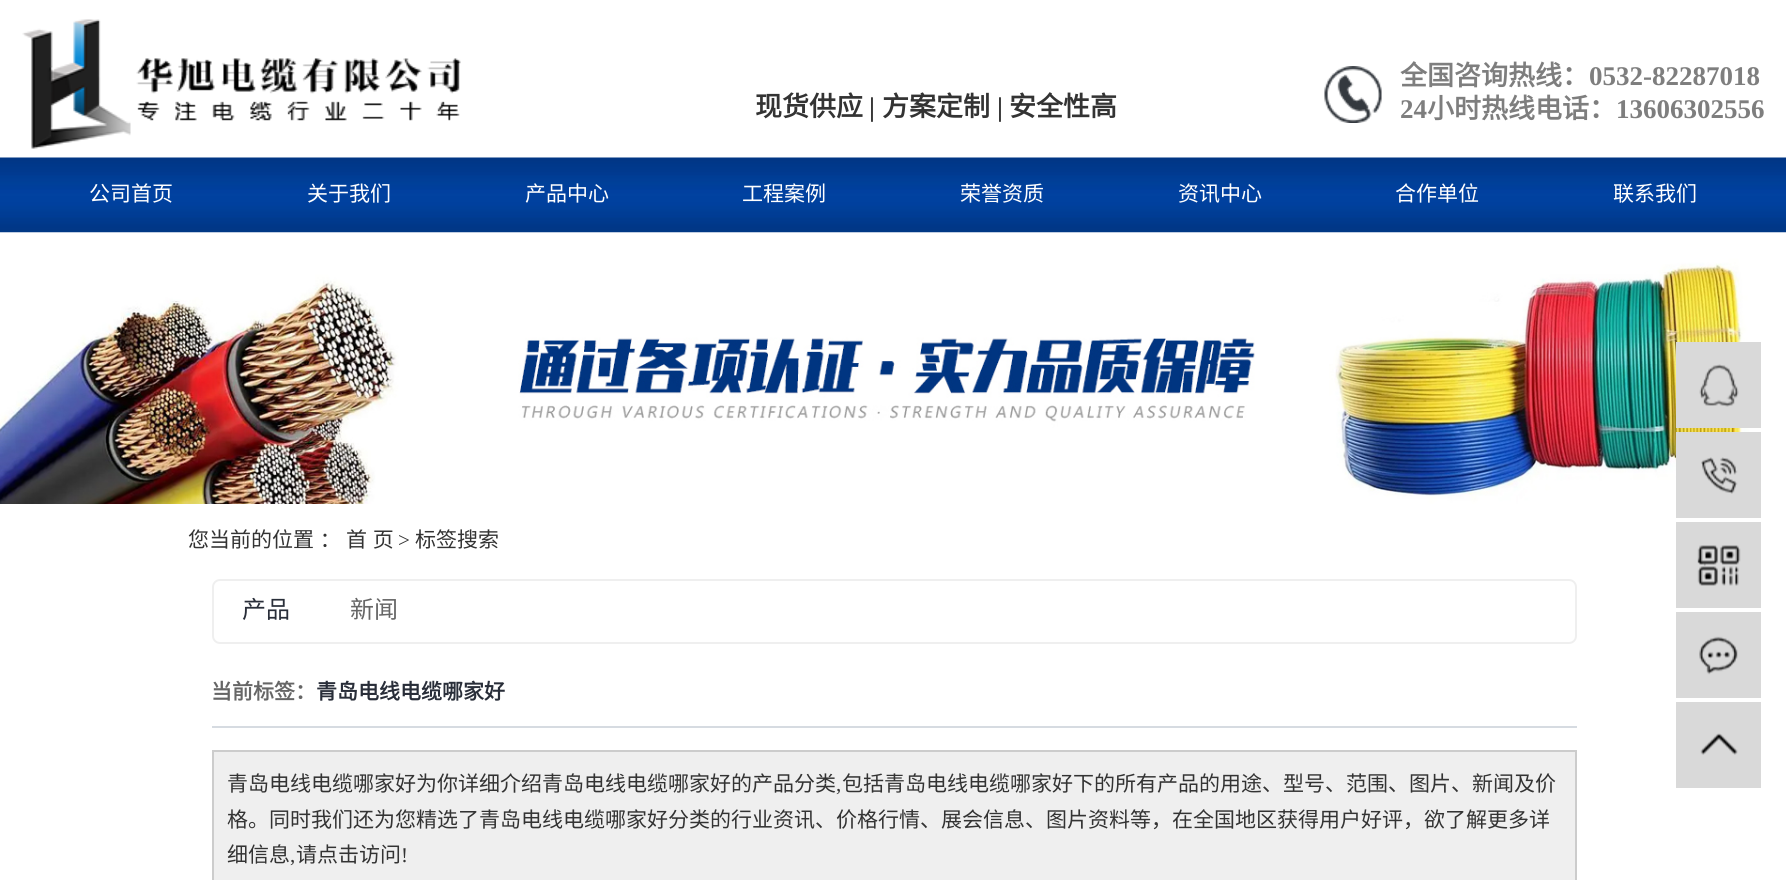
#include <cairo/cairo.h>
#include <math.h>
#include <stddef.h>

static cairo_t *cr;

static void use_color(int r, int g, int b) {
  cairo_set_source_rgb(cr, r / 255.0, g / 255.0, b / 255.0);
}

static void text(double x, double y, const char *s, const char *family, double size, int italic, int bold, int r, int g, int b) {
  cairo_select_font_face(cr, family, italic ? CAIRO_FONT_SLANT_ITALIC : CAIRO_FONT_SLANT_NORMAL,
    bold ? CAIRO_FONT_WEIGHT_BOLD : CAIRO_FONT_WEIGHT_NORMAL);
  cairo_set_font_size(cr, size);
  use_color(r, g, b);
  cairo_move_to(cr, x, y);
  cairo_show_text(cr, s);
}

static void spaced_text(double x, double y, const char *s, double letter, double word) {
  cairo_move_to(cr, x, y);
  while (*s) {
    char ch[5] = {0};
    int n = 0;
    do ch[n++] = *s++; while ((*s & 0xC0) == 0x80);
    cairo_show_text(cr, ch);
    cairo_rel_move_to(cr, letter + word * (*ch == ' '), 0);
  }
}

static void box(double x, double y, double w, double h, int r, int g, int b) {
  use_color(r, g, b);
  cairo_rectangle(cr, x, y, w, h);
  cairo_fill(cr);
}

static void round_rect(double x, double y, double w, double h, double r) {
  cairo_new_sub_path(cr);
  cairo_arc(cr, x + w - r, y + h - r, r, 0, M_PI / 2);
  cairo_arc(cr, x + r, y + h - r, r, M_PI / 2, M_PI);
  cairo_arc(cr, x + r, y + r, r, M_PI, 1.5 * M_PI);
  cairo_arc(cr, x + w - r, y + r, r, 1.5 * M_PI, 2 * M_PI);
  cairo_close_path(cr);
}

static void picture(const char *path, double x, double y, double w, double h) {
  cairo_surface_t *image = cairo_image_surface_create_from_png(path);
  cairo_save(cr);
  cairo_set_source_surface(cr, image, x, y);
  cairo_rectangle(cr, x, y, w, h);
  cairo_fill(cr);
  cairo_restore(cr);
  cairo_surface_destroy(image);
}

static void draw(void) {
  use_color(255, 255, 255);
  cairo_paint(cr);
  picture("img_01.png", 22, 19, 439, 130);
  picture("img_02.png", 1324, 66, 58, 57);
  picture("img_03.png", 0, 157, 1786, 76);
  picture("img_04.png", 0, 232, 1786, 272);
  box(1676, 342, 85, 86, 217, 217, 217);
  picture("img_05.png", 1699, 364, 40, 43);
  box(1676, 432, 85, 86, 217, 217, 217);
  picture("img_06.png", 1701, 457, 37, 37);
  box(1676, 522, 85, 86, 217, 217, 217);
  picture("img_07.png", 1697, 545, 44, 41);
  box(1676, 612, 85, 86, 217, 217, 217);
  picture("img_08.png", 1699, 636, 39, 39);
  box(1676, 702, 85, 86, 217, 217, 217);
  picture("img_09.png", 1700, 733, 38, 22);
  round_rect(213, 580, 1363, 63, 7);
  use_color(239, 239, 239);
  cairo_stroke(cr);
  box(212, 726, 1365, 2, 214, 219, 225);
  use_color(239, 239, 239);
  cairo_rectangle(cr, 213, 751, 1363, 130);
  cairo_fill_preserve(cr);
  use_color(204, 204, 204);
  cairo_stroke(cr);
  text(755, 116, "现货供应", "Noto Sans CJK SC", 27, 0, 1, 51, 51, 51);
  text(869, 116, "|", "Liberation Serif", 27, 0, 1, 51, 51, 51);
  text(882, 116, "方案定制", "Noto Sans CJK SC", 27, 0, 1, 51, 51, 51);
  text(997, 116, "|", "Liberation Serif", 27, 0, 1, 51, 51, 51);
  text(1009, 116, "安全性高", "Noto Sans CJK SC", 27, 0, 1, 51, 51, 51);
  text(1400, 85, "全国咨询热线：", "Noto Sans CJK SC", 27, 0, 1, 126, 126, 126);
  text(1589, 85, "0532-82287018", "Liberation Serif", 27, 0, 1, 126, 126, 126);
  text(1400, 118, "24", "Liberation Serif", 27, 0, 1, 126, 126, 126);
  text(1427, 118, "小时热线电话：", "Noto Sans CJK SC", 27, 0, 1, 126, 126, 126);
  text(1616, 118, "13606302556", "Liberation Serif", 27, 0, 1, 126, 126, 126);
  text(89, 201, "公司首页", "Noto Sans CJK SC", 21, 0, 0, 255, 255, 255);
  text(307, 201, "关于我们", "Noto Sans CJK SC", 21, 0, 0, 255, 255, 255);
  text(525, 201, "产品中心", "Noto Sans CJK SC", 21, 0, 0, 255, 255, 255);
  text(742, 201, "工程案例", "Noto Sans CJK SC", 21, 0, 0, 255, 255, 255);
  text(960, 201, "荣誉资质", "Noto Sans CJK SC", 21, 0, 0, 255, 255, 255);
  text(1178, 201, "资讯中心", "Noto Sans CJK SC", 21, 0, 0, 255, 255, 255);
  text(1395, 201, "合作单位", "Noto Sans CJK SC", 21, 0, 0, 255, 255, 255);
  text(1613, 201, "联系我们", "Noto Sans CJK SC", 21, 0, 0, 255, 255, 255);
  use_color(51, 51, 51);
  spaced_text(188, 547, "您当前的位置 ：", 0, 1);
  spaced_text(346, 547, "首 页", 0, 1);
  text(398, 547, ">", "Liberation Serif", 21, 0, 0, 51, 51, 51);
  text(415, 547, "标签搜索", "Noto Sans CJK SC", 21, 0, 0, 51, 51, 51);
  text(242, 618, "产品", "Noto Sans CJK SC", 24, 0, 0, 41, 46, 57);
  text(350, 618, "新闻", "Noto Sans CJK SC", 24, 0, 0, 102, 102, 102);
  text(211, 699, "当前标签：", "Noto Sans CJK SC", 21, 0, 1, 102, 102, 102);
  text(316, 699, "青岛电线电缆哪家好", "Noto Sans CJK SC", 21, 0, 1, 41, 46, 57);
  text(227, 791, "青岛电线电缆哪家好为你详细介绍青岛电线电缆哪家好的产品分类", "Noto Sans CJK SC", 21, 0, 0, 51, 51, 51);
  text(836, 791, ",", "Liberation Serif", 21, 0, 0, 51, 51, 51);
  text(842, 791, "包括青岛电线电缆哪家好下的所有产品的用途、型号、范围、图片、新闻及价", "Noto Sans CJK SC", 21, 0, 0, 51, 51, 51);
  text(227, 827, "格。同时我们还为您精选了青岛电线电缆哪家好分类的行业资讯、价格行情、展会信息、图片资料等，在全国地区获得用户好评，欲了解更多详", "Noto Sans CJK SC", 21, 0, 0, 51, 51, 51);
  text(227, 862, "细信息", "Noto Sans CJK SC", 21, 0, 0, 51, 51, 51);
  text(290, 862, ",", "Liberation Serif", 21, 0, 0, 51, 51, 51);
  text(296, 862, "请点击访问", "Noto Sans CJK SC", 21, 0, 0, 51, 51, 51);
  text(401, 862, "!", "Liberation Serif", 21, 0, 0, 51, 51, 51);
}

int main(void) {
  cairo_surface_t *surface = cairo_image_surface_create(CAIRO_FORMAT_RGB24, 1786, 880);
  cr = cairo_create(surface);
  cairo_font_options_t *options = cairo_font_options_create();
  cairo_font_options_set_hint_metrics(options, CAIRO_HINT_METRICS_OFF);
  cairo_font_options_set_hint_style(options, CAIRO_HINT_STYLE_NONE);
  cairo_set_font_options(cr, options);
  cairo_set_miter_limit(cr, 4);
  draw();
  cairo_surface_write_to_png(surface, "out.png");
  cairo_font_options_destroy(options);
  cairo_destroy(cr);
  cairo_surface_destroy(surface);
  return 0;
}
